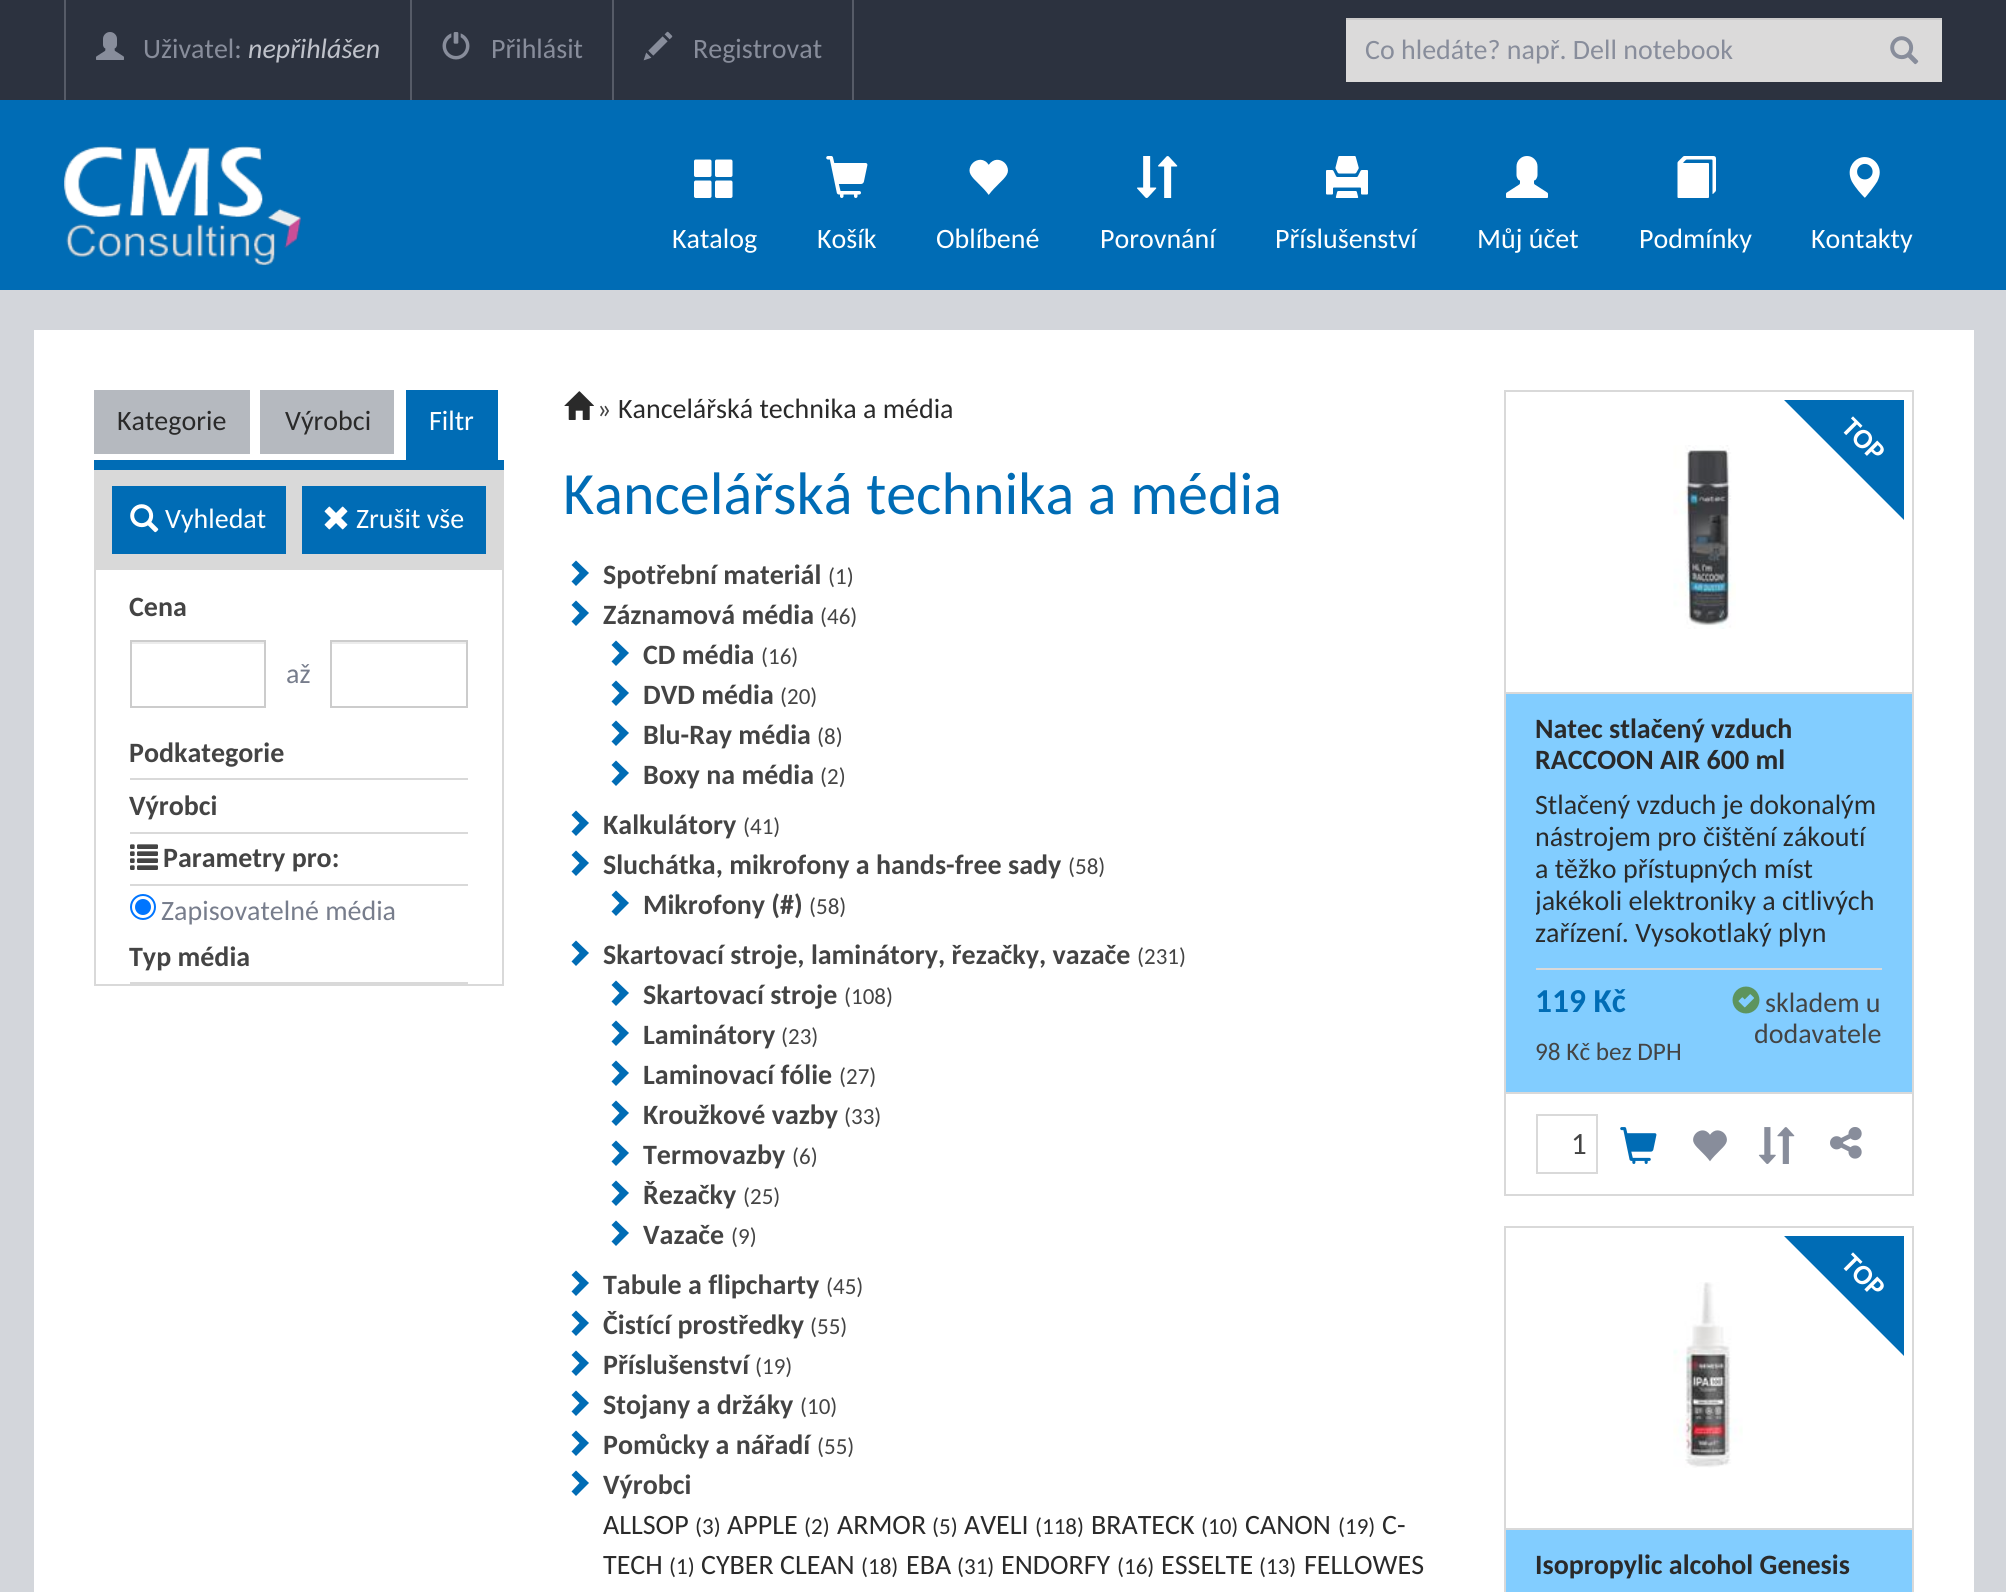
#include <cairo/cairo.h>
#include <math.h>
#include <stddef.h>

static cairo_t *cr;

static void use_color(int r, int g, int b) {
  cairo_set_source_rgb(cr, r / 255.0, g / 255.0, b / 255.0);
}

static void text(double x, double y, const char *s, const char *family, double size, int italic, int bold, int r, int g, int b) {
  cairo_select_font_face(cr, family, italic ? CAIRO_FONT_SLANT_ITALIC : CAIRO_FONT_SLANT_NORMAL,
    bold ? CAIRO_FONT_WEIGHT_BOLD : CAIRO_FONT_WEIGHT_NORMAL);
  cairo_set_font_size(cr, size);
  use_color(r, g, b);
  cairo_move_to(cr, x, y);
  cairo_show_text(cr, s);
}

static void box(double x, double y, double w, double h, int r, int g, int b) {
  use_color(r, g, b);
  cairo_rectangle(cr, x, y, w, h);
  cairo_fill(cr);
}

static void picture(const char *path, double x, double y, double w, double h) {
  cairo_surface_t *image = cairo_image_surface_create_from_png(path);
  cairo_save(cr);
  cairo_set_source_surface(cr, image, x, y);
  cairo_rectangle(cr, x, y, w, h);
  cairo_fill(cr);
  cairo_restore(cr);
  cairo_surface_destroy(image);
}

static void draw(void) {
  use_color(211, 214, 219);
  cairo_paint(cr);
  box(0, 0, 2006, 100, 44, 50, 63);
  box(64, 0, 2, 100, 86, 91, 103);
  picture("img_01.png", 96, 32, 28, 28);
  box(410, 0, 2, 100, 86, 91, 103);
  picture("img_02.png", 442, 32, 28, 28);
  box(852, 0, 2, 100, 86, 91, 103);
  box(612, 0, 2, 100, 86, 91, 103);
  picture("img_03.png", 643, 31, 30, 30);
  box(1346, 20, 596, 62, 219, 218, 218);
  box(1346, 18, 596, 2, 203, 202, 202);
  picture("img_04.png", 1890, 36, 29, 29);
  box(0, 100, 2006, 190, 0, 108, 181);
  picture("img_05.png", 64, 146, 237, 120);
  picture("img_06.png", 694, 159, 39, 39);
  picture("img_07.png", 826, 156, 42, 42);
  picture("img_08.png", 969, 159, 39, 36);
  picture("img_09.png", 1137, 156, 41, 42);
  picture("img_10.png", 1326, 156, 42, 42);
  picture("img_11.png", 1506, 156, 42, 42);
  picture("img_12.png", 1677, 156, 39, 42);
  picture("img_13.png", 1849, 157, 31, 41);
  box(34, 330, 1940, 1262, 255, 255, 255);
  box(94, 460, 410, 10, 0, 108, 181);
  box(94, 390, 156, 64, 181, 185, 191);
  box(260, 390, 134, 64, 181, 185, 191);
  box(406, 390, 92, 70, 0, 108, 181);
  box(502, 470, 2, 516, 217, 217, 217);
  box(94, 984, 410, 2, 217, 217, 217);
  box(94, 470, 2, 516, 217, 217, 217);
  box(96, 470, 406, 100, 217, 217, 217);
  box(112, 486, 174, 68, 0, 108, 181);
  picture("img_14.png", 130, 504, 29, 29);
  box(302, 486, 184, 68, 0, 108, 181);
  picture("img_15.png", 324, 506, 24, 24);
  box(132, 642, 132, 2, 236, 236, 236);
  cairo_rectangle(cr, 131, 641, 134, 66);
  use_color(204, 204, 204);
  cairo_stroke(cr);
  box(332, 642, 134, 2, 236, 236, 236);
  cairo_rectangle(cr, 331, 641, 136, 66);
  use_color(204, 204, 204);
  cairo_stroke(cr);
  box(130, 778, 338, 2, 217, 217, 217);
  box(130, 832, 338, 2, 217, 217, 217);
  box(130, 884, 338, 2, 217, 217, 217);
  picture("img_16.png", 130, 844, 28, 26);
  cairo_arc(cr, 143, 907, 12, 0, 2 * M_PI);
  use_color(0, 117, 255);
  cairo_stroke(cr);
  cairo_arc(cr, 143, 907, 8, 0, 2 * M_PI);
  cairo_fill(cr);
  box(130, 982, 338, 2, 217, 217, 217);
  picture("img_17.png", 564, 391, 30, 29);
  use_color(0, 108, 181);
  cairo_new_path(cr);
  cairo_move_to(cr, 589, 573);
  cairo_line_to(cr, 576, 586);
  cairo_line_to(cr, 571.5, 581.5);
  cairo_line_to(cr, 579.5, 573);
  cairo_line_to(cr, 571.5, 565);
  cairo_line_to(cr, 576, 560.5);
  cairo_close_path(cr);
  cairo_fill(cr);
  cairo_new_path(cr);
  cairo_move_to(cr, 589, 613);
  cairo_line_to(cr, 576, 626);
  cairo_line_to(cr, 571.5, 621.5);
  cairo_line_to(cr, 579.5, 613);
  cairo_line_to(cr, 571.5, 605);
  cairo_line_to(cr, 576, 600.5);
  cairo_close_path(cr);
  cairo_fill(cr);
  cairo_new_path(cr);
  cairo_move_to(cr, 629, 653);
  cairo_line_to(cr, 616, 666);
  cairo_line_to(cr, 611.5, 661.5);
  cairo_line_to(cr, 619.5, 653);
  cairo_line_to(cr, 611.5, 645);
  cairo_line_to(cr, 616, 640.5);
  cairo_close_path(cr);
  cairo_fill(cr);
  cairo_new_path(cr);
  cairo_move_to(cr, 629, 693);
  cairo_line_to(cr, 616, 706);
  cairo_line_to(cr, 611.5, 701.5);
  cairo_line_to(cr, 619.5, 693);
  cairo_line_to(cr, 611.5, 685);
  cairo_line_to(cr, 616, 680.5);
  cairo_close_path(cr);
  cairo_fill(cr);
  cairo_new_path(cr);
  cairo_move_to(cr, 629, 733);
  cairo_line_to(cr, 616, 746);
  cairo_line_to(cr, 611.5, 741.5);
  cairo_line_to(cr, 619.5, 733);
  cairo_line_to(cr, 611.5, 725);
  cairo_line_to(cr, 616, 720.5);
  cairo_close_path(cr);
  cairo_fill(cr);
  cairo_new_path(cr);
  cairo_move_to(cr, 629, 773);
  cairo_line_to(cr, 616, 786);
  cairo_line_to(cr, 611.5, 781.5);
  cairo_line_to(cr, 619.5, 773);
  cairo_line_to(cr, 611.5, 765);
  cairo_line_to(cr, 616, 760.5);
  cairo_close_path(cr);
  cairo_fill(cr);
  cairo_new_path(cr);
  cairo_move_to(cr, 589, 823);
  cairo_line_to(cr, 576, 836);
  cairo_line_to(cr, 571.5, 831.5);
  cairo_line_to(cr, 579.5, 823);
  cairo_line_to(cr, 571.5, 815);
  cairo_line_to(cr, 576, 810.5);
  cairo_close_path(cr);
  cairo_fill(cr);
  cairo_new_path(cr);
  cairo_move_to(cr, 589, 863);
  cairo_line_to(cr, 576, 876);
  cairo_line_to(cr, 571.5, 871.5);
  cairo_line_to(cr, 579.5, 863);
  cairo_line_to(cr, 571.5, 855);
  cairo_line_to(cr, 576, 850.5);
  cairo_close_path(cr);
  cairo_fill(cr);
  cairo_new_path(cr);
  cairo_move_to(cr, 629, 903);
  cairo_line_to(cr, 616, 916);
  cairo_line_to(cr, 611.5, 911.5);
  cairo_line_to(cr, 619.5, 903);
  cairo_line_to(cr, 611.5, 895);
  cairo_line_to(cr, 616, 890.5);
  cairo_close_path(cr);
  cairo_fill(cr);
  cairo_new_path(cr);
  cairo_move_to(cr, 589, 953);
  cairo_line_to(cr, 576, 966);
  cairo_line_to(cr, 571.5, 961.5);
  cairo_line_to(cr, 579.5, 953);
  cairo_line_to(cr, 571.5, 945);
  cairo_line_to(cr, 576, 940.5);
  cairo_close_path(cr);
  cairo_fill(cr);
  cairo_new_path(cr);
  cairo_move_to(cr, 629, 993);
  cairo_line_to(cr, 616, 1006);
  cairo_line_to(cr, 611.5, 1001.5);
  cairo_line_to(cr, 619.5, 993);
  cairo_line_to(cr, 611.5, 985);
  cairo_line_to(cr, 616, 980.5);
  cairo_close_path(cr);
  cairo_fill(cr);
  cairo_new_path(cr);
  cairo_move_to(cr, 629, 1033);
  cairo_line_to(cr, 616, 1046);
  cairo_line_to(cr, 611.5, 1041.5);
  cairo_line_to(cr, 619.5, 1033);
  cairo_line_to(cr, 611.5, 1025);
  cairo_line_to(cr, 616, 1020.5);
  cairo_close_path(cr);
  cairo_fill(cr);
  cairo_new_path(cr);
  cairo_move_to(cr, 629, 1073);
  cairo_line_to(cr, 616, 1086);
  cairo_line_to(cr, 611.5, 1081.5);
  cairo_line_to(cr, 619.5, 1073);
  cairo_line_to(cr, 611.5, 1065);
  cairo_line_to(cr, 616, 1060.5);
  cairo_close_path(cr);
  cairo_fill(cr);
  cairo_new_path(cr);
  cairo_move_to(cr, 629, 1113);
  cairo_line_to(cr, 616, 1126);
  cairo_line_to(cr, 611.5, 1121.5);
  cairo_line_to(cr, 619.5, 1113);
  cairo_line_to(cr, 611.5, 1105);
  cairo_line_to(cr, 616, 1100.5);
  cairo_close_path(cr);
  cairo_fill(cr);
  cairo_new_path(cr);
  cairo_move_to(cr, 629, 1153);
  cairo_line_to(cr, 616, 1166);
  cairo_line_to(cr, 611.5, 1161.5);
  cairo_line_to(cr, 619.5, 1153);
  cairo_line_to(cr, 611.5, 1145);
  cairo_line_to(cr, 616, 1140.5);
  cairo_close_path(cr);
  cairo_fill(cr);
  cairo_new_path(cr);
  cairo_move_to(cr, 629, 1193);
  cairo_line_to(cr, 616, 1206);
  cairo_line_to(cr, 611.5, 1201.5);
  cairo_line_to(cr, 619.5, 1193);
  cairo_line_to(cr, 611.5, 1185);
  cairo_line_to(cr, 616, 1180.5);
  cairo_close_path(cr);
  cairo_fill(cr);
  cairo_new_path(cr);
  cairo_move_to(cr, 629, 1233);
  cairo_line_to(cr, 616, 1246);
  cairo_line_to(cr, 611.5, 1241.5);
  cairo_line_to(cr, 619.5, 1233);
  cairo_line_to(cr, 611.5, 1225);
  cairo_line_to(cr, 616, 1220.5);
  cairo_close_path(cr);
  cairo_fill(cr);
  cairo_new_path(cr);
  cairo_move_to(cr, 589, 1283);
  cairo_line_to(cr, 576, 1296);
  cairo_line_to(cr, 571.5, 1291.5);
  cairo_line_to(cr, 579.5, 1283);
  cairo_line_to(cr, 571.5, 1275);
  cairo_line_to(cr, 576, 1270.5);
  cairo_close_path(cr);
  cairo_fill(cr);
  cairo_new_path(cr);
  cairo_move_to(cr, 589, 1323);
  cairo_line_to(cr, 576, 1336);
  cairo_line_to(cr, 571.5, 1331.5);
  cairo_line_to(cr, 579.5, 1323);
  cairo_line_to(cr, 571.5, 1315);
  cairo_line_to(cr, 576, 1310.5);
  cairo_close_path(cr);
  cairo_fill(cr);
  cairo_new_path(cr);
  cairo_move_to(cr, 589, 1363);
  cairo_line_to(cr, 576, 1376);
  cairo_line_to(cr, 571.5, 1371.5);
  cairo_line_to(cr, 579.5, 1363);
  cairo_line_to(cr, 571.5, 1355);
  cairo_line_to(cr, 576, 1350.5);
  cairo_close_path(cr);
  cairo_fill(cr);
  cairo_new_path(cr);
  cairo_move_to(cr, 589, 1403);
  cairo_line_to(cr, 576, 1416);
  cairo_line_to(cr, 571.5, 1411.5);
  cairo_line_to(cr, 579.5, 1403);
  cairo_line_to(cr, 571.5, 1395);
  cairo_line_to(cr, 576, 1390.5);
  cairo_close_path(cr);
  cairo_fill(cr);
  cairo_new_path(cr);
  cairo_move_to(cr, 589, 1443);
  cairo_line_to(cr, 576, 1456);
  cairo_line_to(cr, 571.5, 1451.5);
  cairo_line_to(cr, 579.5, 1443);
  cairo_line_to(cr, 571.5, 1435);
  cairo_line_to(cr, 576, 1430.5);
  cairo_close_path(cr);
  cairo_fill(cr);
  cairo_new_path(cr);
  cairo_move_to(cr, 589, 1483);
  cairo_line_to(cr, 576, 1496);
  cairo_line_to(cr, 571.5, 1491.5);
  cairo_line_to(cr, 579.5, 1483);
  cairo_line_to(cr, 571.5, 1475);
  cairo_line_to(cr, 576, 1470.5);
  cairo_close_path(cr);
  cairo_fill(cr);
  box(1506, 694, 406, 398, 130, 205, 255);
  cairo_rectangle(cr, 1505, 391, 408, 804);
  use_color(217, 217, 217);
  cairo_stroke(cr);
  use_color(0, 108, 181);
  cairo_new_path(cr);
  cairo_move_to(cr, 1904, 400);
  cairo_line_to(cr, 1904, 520);
  cairo_line_to(cr, 1784, 400);
  cairo_close_path(cr);
  cairo_fill(cr);
  picture("img_18.png", 1673, 445, 63, 184);
  box(1506, 692, 406, 2, 217, 217, 217);
  box(1536, 968, 346, 2, 217, 217, 217);
  picture("img_19.png", 1732, 986, 28, 28);
  box(1506, 1092, 406, 2, 217, 217, 217);
  cairo_rectangle(cr, 1537, 1115, 60, 58);
  cairo_stroke(cr);
  picture("img_20.png", 1620, 1127, 37, 37);
  picture("img_21.png", 1693, 1130, 34, 32);
  picture("img_22.png", 1758, 1127, 37, 37);
  picture("img_23.png", 1830, 1127, 32, 32);
  box(1506, 1530, 406, 62, 130, 205, 255);
  cairo_rectangle(cr, 1505, 1227, 408, 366);
  use_color(217, 217, 217);
  cairo_stroke(cr);
  use_color(0, 108, 181);
  cairo_new_path(cr);
  cairo_move_to(cr, 1904, 1236);
  cairo_line_to(cr, 1904, 1356);
  cairo_line_to(cr, 1784, 1236);
  cairo_close_path(cr);
  cairo_fill(cr);
  picture("img_24.png", 1673, 1282, 70, 186);
  box(1506, 1528, 406, 2, 217, 217, 217);
  text(143, 58, "Uživatel:", "Carlito", 28, 0, 0, 136, 141, 155);
  text(248, 58, "nepřihlášen", "Carlito", 28, 1, 0, 191, 194, 202);
  text(491, 58, "Přihlásit", "Carlito", 28, 0, 0, 136, 141, 155);
  text(693, 58, "Registrovat", "Carlito", 28, 0, 0, 136, 141, 155);
  text(1365, 59, "Co hledáte? např. Dell notebook", "Carlito", 28, 0, 0, 136, 141, 155);
  text(672, 248, "Katalog", "Carlito", 28, 0, 0, 255, 255, 255);
  text(817, 248, "Košík", "Carlito", 28, 0, 0, 255, 255, 255);
  text(936, 248, "Oblíbené", "Carlito", 28, 0, 0, 255, 255, 255);
  text(1100, 248, "Porovnání", "Carlito", 28, 0, 0, 255, 255, 255);
  text(1275, 248, "Příslušenství", "Carlito", 28, 0, 0, 255, 255, 255);
  text(1477, 248, "Můj účet", "Carlito", 28, 0, 0, 255, 255, 255);
  text(1639, 248, "Podmínky", "Carlito", 28, 0, 0, 255, 255, 255);
  text(1811, 248, "Kontakty", "Carlito", 28, 0, 0, 255, 255, 255);
  text(117, 430, "Kategorie", "Carlito", 28, 0, 0, 42, 42, 42);
  text(285, 430, "Výrobci", "Carlito", 28, 0, 0, 42, 42, 42);
  text(429, 430, "Filtr", "Carlito", 28, 0, 0, 255, 255, 255);
  text(165, 528, "Vyhledat", "Carlito", 28, 0, 0, 255, 255, 255);
  text(356, 528, "Zrušit vše", "Carlito", 28, 0, 0, 255, 255, 255);
  text(129, 616, "Cena", "Carlito", 28, 0, 1, 68, 68, 68);
  text(286, 683, "až", "Carlito", 28, 0, 0, 119, 125, 140);
  text(129, 762, "Podkategorie", "Carlito", 28, 0, 1, 68, 68, 68);
  text(129, 815, "Výrobci", "Carlito", 28, 0, 1, 68, 68, 68);
  text(163, 867, "Parametry pro:", "Carlito", 28, 0, 1, 68, 68, 68);
  text(161, 920, "Zapisovatelné média", "Carlito", 28, 0, 0, 119, 125, 140);
  text(129, 966, "Typ média", "Carlito", 28, 0, 1, 68, 68, 68);
  text(597, 418, "»", "Carlito", 28, 0, 0, 68, 68, 68);
  text(618, 418, "Kancelářská technika a média", "Carlito", 28, 0, 0, 42, 42, 42);
  text(563, 514, "Kancelářská technika a média", "Carlito", 60, 0, 0, 0, 108, 181);
  text(603, 584, "Spotřební materiál", "Carlito", 28, 0, 1, 68, 68, 68);
  text(828, 584, "(1)", "Carlito", 23, 0, 0, 68, 68, 68);
  text(603, 624, "Záznamová média", "Carlito", 28, 0, 1, 68, 68, 68);
  text(820, 624, "(46)", "Carlito", 23, 0, 0, 68, 68, 68);
  text(643, 664, "CD média", "Carlito", 28, 0, 1, 68, 68, 68);
  text(761, 664, "(16)", "Carlito", 23, 0, 0, 68, 68, 68);
  text(643, 704, "DVD média", "Carlito", 28, 0, 1, 68, 68, 68);
  text(780, 704, "(20)", "Carlito", 23, 0, 0, 68, 68, 68);
  text(643, 744, "Blu-Ray média", "Carlito", 28, 0, 1, 68, 68, 68);
  text(817, 744, "(8)", "Carlito", 23, 0, 0, 68, 68, 68);
  text(643, 784, "Boxy na média", "Carlito", 28, 0, 1, 68, 68, 68);
  text(820, 784, "(2)", "Carlito", 23, 0, 0, 68, 68, 68);
  text(603, 834, "Kalkulátory", "Carlito", 28, 0, 1, 68, 68, 68);
  text(743, 834, "(41)", "Carlito", 23, 0, 0, 68, 68, 68);
  text(603, 874, "Sluchátka, mikrofony a hands-free sady", "Carlito", 28, 0, 1, 68, 68, 68);
  text(1068, 874, "(58)", "Carlito", 23, 0, 0, 68, 68, 68);
  text(643, 914, "Mikrofony (#)", "Carlito", 28, 0, 1, 68, 68, 68);
  text(809, 914, "(58)", "Carlito", 23, 0, 0, 68, 68, 68);
  text(603, 964, "Skartovací stroje, laminátory, řezačky, vazače", "Carlito", 28, 0, 1, 68, 68, 68);
  text(1137, 964, "(231)", "Carlito", 23, 0, 0, 68, 68, 68);
  text(643, 1004, "Skartovací stroje", "Carlito", 28, 0, 1, 68, 68, 68);
  text(844, 1004, "(108)", "Carlito", 23, 0, 0, 68, 68, 68);
  text(643, 1044, "Laminátory", "Carlito", 28, 0, 1, 68, 68, 68);
  text(781, 1044, "(23)", "Carlito", 23, 0, 0, 68, 68, 68);
  text(643, 1084, "Laminovací fólie", "Carlito", 28, 0, 1, 68, 68, 68);
  text(839, 1084, "(27)", "Carlito", 23, 0, 0, 68, 68, 68);
  text(643, 1124, "Kroužkové vazby", "Carlito", 28, 0, 1, 68, 68, 68);
  text(844, 1124, "(33)", "Carlito", 23, 0, 0, 68, 68, 68);
  text(643, 1164, "Termovazby", "Carlito", 28, 0, 1, 68, 68, 68);
  text(792, 1164, "(6)", "Carlito", 23, 0, 0, 68, 68, 68);
  text(643, 1204, "Řezačky", "Carlito", 28, 0, 1, 68, 68, 68);
  text(743, 1204, "(25)", "Carlito", 23, 0, 0, 68, 68, 68);
  text(643, 1244, "Vazače", "Carlito", 28, 0, 1, 68, 68, 68);
  text(731, 1244, "(9)", "Carlito", 23, 0, 0, 68, 68, 68);
  text(603, 1294, "Tabule a flipcharty", "Carlito", 28, 0, 1, 68, 68, 68);
  text(826, 1294, "(45)", "Carlito", 23, 0, 0, 68, 68, 68);
  text(603, 1334, "Čistící prostředky", "Carlito", 28, 0, 1, 68, 68, 68);
  text(810, 1334, "(55)", "Carlito", 23, 0, 0, 68, 68, 68);
  text(603, 1374, "Příslušenství", "Carlito", 28, 0, 1, 68, 68, 68);
  text(755, 1374, "(19)", "Carlito", 23, 0, 0, 68, 68, 68);
  text(603, 1414, "Stojany a držáky", "Carlito", 28, 0, 1, 68, 68, 68);
  text(800, 1414, "(10)", "Carlito", 23, 0, 0, 68, 68, 68);
  text(603, 1454, "Pomůcky a nářadí", "Carlito", 28, 0, 1, 68, 68, 68);
  text(817, 1454, "(55)", "Carlito", 23, 0, 0, 68, 68, 68);
  text(603, 1494, "Výrobci", "Carlito", 28, 0, 1, 68, 68, 68);
  text(603, 1534, "ALLSOP", "Carlito", 28, 0, 0, 42, 42, 42);
  text(695, 1534, "(3)", "Carlito", 23, 0, 0, 42, 42, 42);
  text(727, 1534, "APPLE", "Carlito", 28, 0, 0, 42, 42, 42);
  text(804, 1534, "(2)", "Carlito", 23, 0, 0, 42, 42, 42);
  text(837, 1534, "ARMOR", "Carlito", 28, 0, 0, 42, 42, 42);
  text(932, 1534, "(5)", "Carlito", 23, 0, 0, 42, 42, 42);
  text(964, 1534, "AVELI", "Carlito", 28, 0, 0, 42, 42, 42);
  text(1035, 1534, "(118)", "Carlito", 23, 0, 0, 42, 42, 42);
  text(1091, 1534, "BRATECK", "Carlito", 28, 0, 0, 42, 42, 42);
  text(1201, 1534, "(10)", "Carlito", 23, 0, 0, 42, 42, 42);
  text(1245, 1534, "CANON", "Carlito", 28, 0, 0, 42, 42, 42);
  text(1338, 1534, "(19)", "Carlito", 23, 0, 0, 42, 42, 42);
  text(1382, 1534, "C-", "Carlito", 28, 0, 0, 42, 42, 42);
  text(603, 1574, "TECH", "Carlito", 28, 0, 0, 42, 42, 42);
  text(669, 1574, "(1)", "Carlito", 23, 0, 0, 42, 42, 42);
  text(701, 1574, "CYBER CLEAN", "Carlito", 28, 0, 0, 42, 42, 42);
  text(861, 1574, "(18)", "Carlito", 23, 0, 0, 42, 42, 42);
  text(906, 1574, "EBA", "Carlito", 28, 0, 0, 42, 42, 42);
  text(957, 1574, "(31)", "Carlito", 23, 0, 0, 42, 42, 42);
  text(1001, 1574, "ENDORFY", "Carlito", 28, 0, 0, 42, 42, 42);
  text(1117, 1574, "(16)", "Carlito", 23, 0, 0, 42, 42, 42);
  text(1161, 1574, "ESSELTE", "Carlito", 28, 0, 0, 42, 42, 42);
  text(1259, 1574, "(13)", "Carlito", 23, 0, 0, 42, 42, 42);
  text(1304, 1574, "FELLOWES", "Carlito", 28, 0, 0, 42, 42, 42);
  cairo_save(cr);
  cairo_translate(cr, 1840, 429);
  cairo_rotate(cr, 45 * M_PI / 180);
  text(0, 0, "TOP", "Carlito", 28, 0, 1, 255, 255, 255);
  cairo_restore(cr);
  text(1535, 738, "Natec stlačený vzduch", "Carlito", 28, 0, 1, 42, 42, 42);
  text(1535, 769, "RACCOON AIR 600 ml", "Carlito", 28, 0, 1, 42, 42, 42);
  text(1535, 814, "Stlačený vzduch je dokonalým", "Carlito", 28, 0, 0, 42, 42, 42);
  text(1535, 846, "nástrojem pro čištění zákoutí", "Carlito", 28, 0, 0, 42, 42, 42);
  text(1535, 878, "a těžko přístupných míst", "Carlito", 28, 0, 0, 42, 42, 42);
  cairo_save(cr);
  cairo_rectangle(cr, 1536, 694, 346, 254);
  cairo_clip(cr);
  text(1535, 910, "jakékoli elektroniky a citlivých", "Carlito", 28, 0, 0, 42, 42, 42);
  cairo_restore(cr);
  text(1535, 942, "zařízení. Vysokotlaký plyn", "Carlito", 28, 0, 0, 42, 42, 42);
  text(1535, 1012, "119 Kč", "Carlito", 33.5, 0, 1, 0, 108, 181);
  text(1535, 1060, "98 Kč bez DPH", "Carlito", 25.25, 0, 0, 68, 68, 68);
  text(1765, 1012, "skladem u", "Carlito", 28, 0, 0, 68, 68, 68);
  text(1754, 1043, "dodavatele", "Carlito", 28, 0, 0, 68, 68, 68);
  text(1571, 1154, "1", "Carlito", 31, 0, 0, 68, 68, 68);
  cairo_save(cr);
  cairo_translate(cr, 1840, 1265);
  cairo_rotate(cr, 45 * M_PI / 180);
  text(0, 0, "TOP", "Carlito", 28, 0, 1, 255, 255, 255);
  cairo_restore(cr);
  text(1535, 1574, "Isopropylic alcohol Genesis", "Carlito", 28, 0, 1, 42, 42, 42);
}

int main(void) {
  cairo_surface_t *surface = cairo_image_surface_create(CAIRO_FORMAT_RGB24, 2006, 1592);
  cr = cairo_create(surface);
  cairo_font_options_t *options = cairo_font_options_create();
  cairo_font_options_set_hint_metrics(options, CAIRO_HINT_METRICS_OFF);
  cairo_font_options_set_hint_style(options, CAIRO_HINT_STYLE_NONE);
  cairo_set_font_options(cr, options);
  cairo_set_miter_limit(cr, 4);
  draw();
  cairo_surface_write_to_png(surface, "out.png");
  cairo_font_options_destroy(options);
  cairo_destroy(cr);
  cairo_surface_destroy(surface);
  return 0;
}
